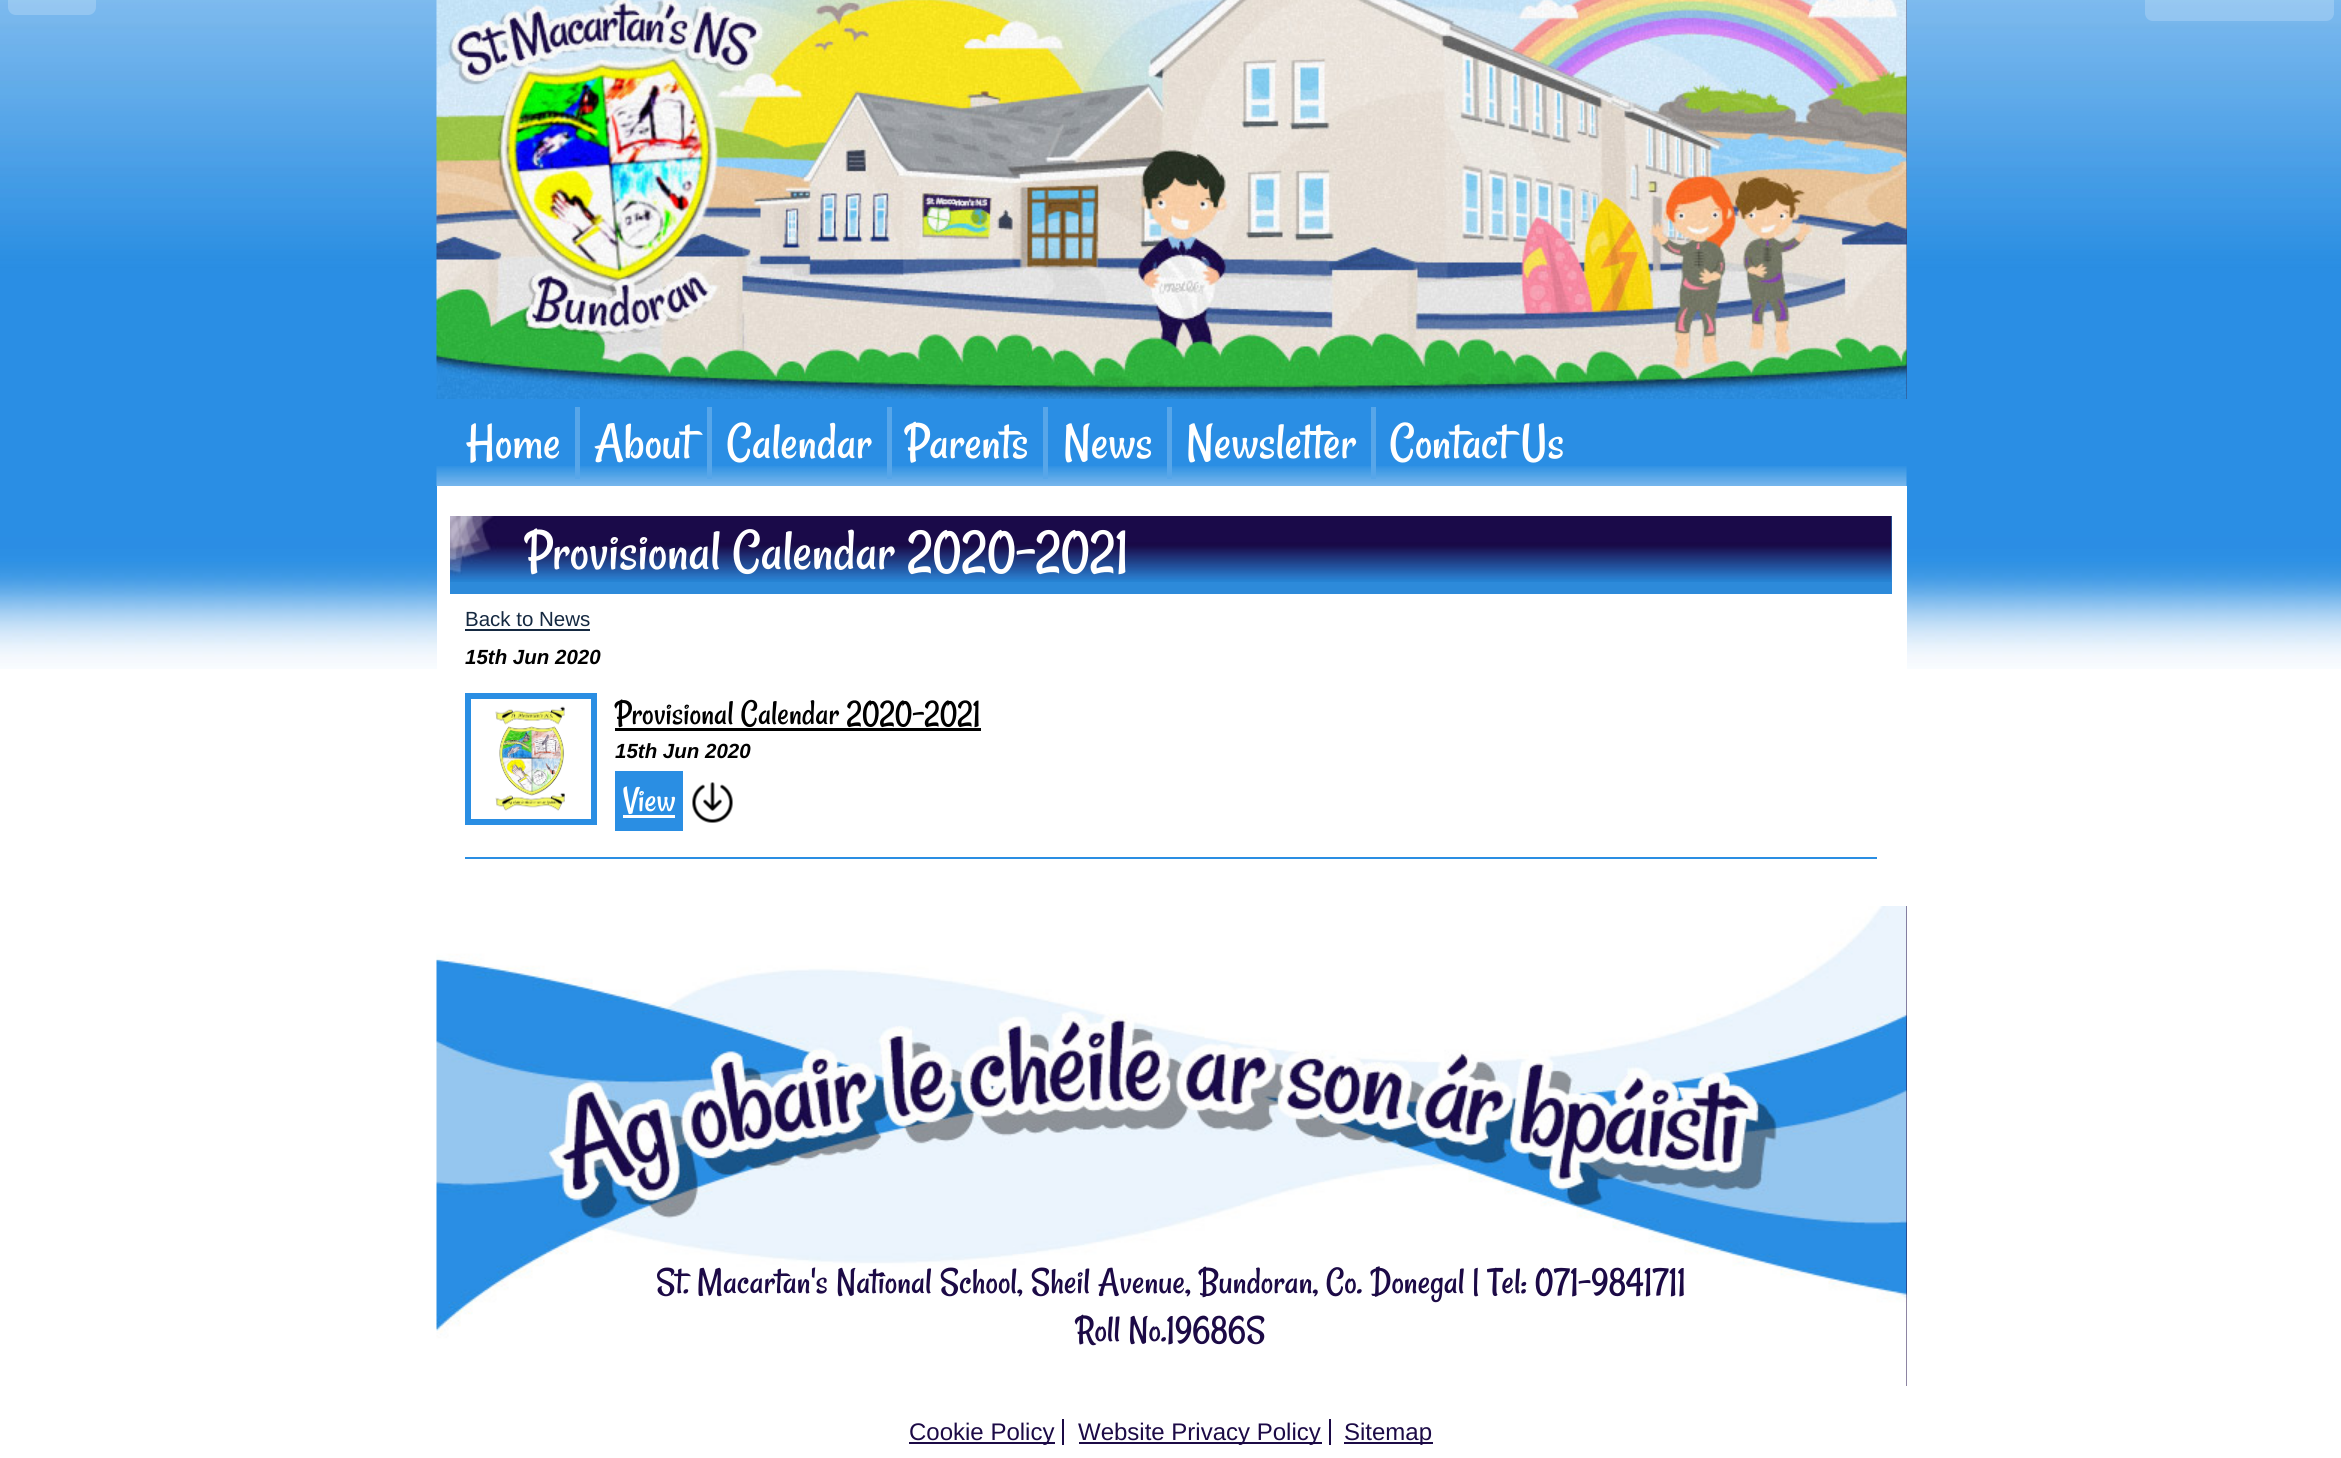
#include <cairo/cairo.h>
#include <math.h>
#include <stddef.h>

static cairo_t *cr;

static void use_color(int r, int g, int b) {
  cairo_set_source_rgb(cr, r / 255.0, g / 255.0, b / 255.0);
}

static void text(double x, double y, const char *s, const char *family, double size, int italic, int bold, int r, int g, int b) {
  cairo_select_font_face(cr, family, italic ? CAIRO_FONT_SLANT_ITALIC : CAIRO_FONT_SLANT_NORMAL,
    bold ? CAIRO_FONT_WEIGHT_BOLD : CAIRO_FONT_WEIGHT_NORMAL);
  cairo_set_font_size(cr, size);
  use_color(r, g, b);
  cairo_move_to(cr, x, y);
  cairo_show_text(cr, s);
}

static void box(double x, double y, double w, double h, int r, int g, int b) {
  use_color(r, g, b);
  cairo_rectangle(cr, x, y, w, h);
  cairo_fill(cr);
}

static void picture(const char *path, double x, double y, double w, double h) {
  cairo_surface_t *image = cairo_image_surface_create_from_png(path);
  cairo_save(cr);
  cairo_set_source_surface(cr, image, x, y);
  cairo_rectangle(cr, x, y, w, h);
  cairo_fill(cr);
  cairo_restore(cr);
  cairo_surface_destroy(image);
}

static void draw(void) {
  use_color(255, 255, 255);
  cairo_paint(cr);
  picture("img_01.png", 0, 0, 2341, 669);
  cairo_set_source_rgba(cr, 1, 1, 1, 0.2);
  cairo_new_path(cr);
  cairo_move_to(cr, 8, -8);
  cairo_line_to(cr, 96, -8);
  cairo_line_to(cr, 96, 7);
  cairo_curve_to(cr, 96, 11.5, 92.5, 15, 88, 15);
  cairo_line_to(cr, 16, 15);
  cairo_curve_to(cr, 11.5, 15, 8, 11.5, 8, 7);
  cairo_close_path(cr);
  cairo_fill(cr);
  cairo_new_path(cr);
  cairo_move_to(cr, 2145, -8);
  cairo_line_to(cr, 2334, -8);
  cairo_line_to(cr, 2334, 13);
  cairo_curve_to(cr, 2334, 17.5, 2330.5, 21, 2326, 21);
  cairo_line_to(cr, 2153, 21);
  cairo_curve_to(cr, 2148.5, 21, 2145, 17.5, 2145, 13);
  cairo_close_path(cr);
  cairo_fill(cr);
  box(1906, 0, 1, 399, 50, 68, 118);
  picture("img_02.png", 436, 0, 1471, 399);
  picture("img_03.png", 436, 466, 1471, 20);
  box(575, 407, 5, 72, 87, 166, 233);
  box(707, 407, 5, 72, 87, 166, 233);
  box(887, 407, 5, 72, 87, 166, 233);
  box(1043, 407, 5, 72, 87, 166, 233);
  box(1167, 407, 5, 72, 87, 166, 233);
  box(1371, 407, 5, 72, 87, 166, 233);
  box(437, 486, 1470, 183, 255, 255, 255);
  box(450, 516, 1442, 78, 45, 138, 218);
  picture("img_04.png", 450, 516, 1442, 66);
  box(465, 629, 125, 2, 21, 41, 65);
  box(465, 857, 1412, 2, 42, 142, 227);
  cairo_rectangle(cr, 468, 696, 126, 126);
  cairo_set_line_width(cr, 6);
  cairo_stroke(cr);
  picture("img_05.png", 495, 706, 70, 105);
  box(615, 728, 366, 3, 0, 0, 0);
  box(615, 771, 68, 60, 42, 142, 227);
  box(623, 815, 52, 3, 255, 255, 255);
  picture("img_06.png", 692, 782, 41, 41);
  box(1906, 906, 1, 480, 28, 10, 70);
  picture("img_07.png", 436, 906, 1471, 480);
  box(1062, 1419, 2, 26, 28, 10, 70);
  box(909, 1442, 146, 2, 28, 10, 70);
  box(1329, 1419, 2, 26, 28, 10, 70);
  box(1079, 1442, 243, 2, 28, 10, 70);
  box(1344, 1442, 89, 2, 28, 10, 70);
  text(466, 458, "Home", "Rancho", 53, 0, 0, 255, 255, 255);
  text(594, 458, "About", "Rancho", 53, 0, 0, 255, 255, 255);
  text(727, 458, "Calendar", "Rancho", 53, 0, 0, 255, 255, 255);
  text(905, 458, "Parents", "Rancho", 53, 0, 0, 255, 255, 255);
  text(1063, 458, "News", "Rancho", 53, 0, 0, 255, 255, 255);
  text(1186, 458, "Newsletter", "Rancho", 53, 0, 0, 255, 255, 255);
  text(1390, 458, "Contact Us", "Rancho", 53, 0, 0, 255, 255, 255);
  text(525, 569, "Provisional Calendar 2020-2021", "Rancho", 59.25, 0, 0, 255, 255, 255);
  text(465, 626, "Back to News", "Liberation Sans", 20.5, 0, 0, 21, 41, 65);
  text(465, 664, "15th Jun 2020", "Liberation Sans", 20.5, 1, 1, 0, 0, 0);
  text(615, 724, "Provisional Calendar 2020-2021", "Rancho", 35.9, 0, 0, 0, 0, 0);
  text(615, 758, "15th Jun 2020", "Liberation Sans", 20.5, 1, 1, 0, 0, 0);
  text(623, 811, "View", "Rancho", 37, 0, 0, 255, 255, 255);
  text(656, 1293, "St. Macartan's National School, Sheil Avenue, Bundoran, Co. Donegal | Tel: 071-9841711", "Rancho", 38.4, 0, 0, 28, 10, 70);
  text(1076, 1341, "Roll No.19686S", "Rancho", 38.4, 0, 0, 28, 10, 70);
  text(909, 1440, "Cookie Policy", "Liberation Sans", 24, 0, 0, 28, 10, 70);
  text(1078, 1440, "Website Privacy Policy", "Liberation Sans", 24, 0, 0, 28, 10, 70);
  text(1344, 1440, "Sitemap", "Liberation Sans", 24, 0, 0, 28, 10, 70);
}

int main(void) {
  cairo_surface_t *surface = cairo_image_surface_create(CAIRO_FORMAT_RGB24, 2341, 1458);
  cr = cairo_create(surface);
  cairo_font_options_t *options = cairo_font_options_create();
  cairo_font_options_set_hint_metrics(options, CAIRO_HINT_METRICS_OFF);
  cairo_font_options_set_hint_style(options, CAIRO_HINT_STYLE_NONE);
  cairo_set_font_options(cr, options);
  cairo_set_miter_limit(cr, 4);
  draw();
  cairo_surface_write_to_png(surface, "out.png");
  cairo_font_options_destroy(options);
  cairo_destroy(cr);
  cairo_surface_destroy(surface);
  return 0;
}
